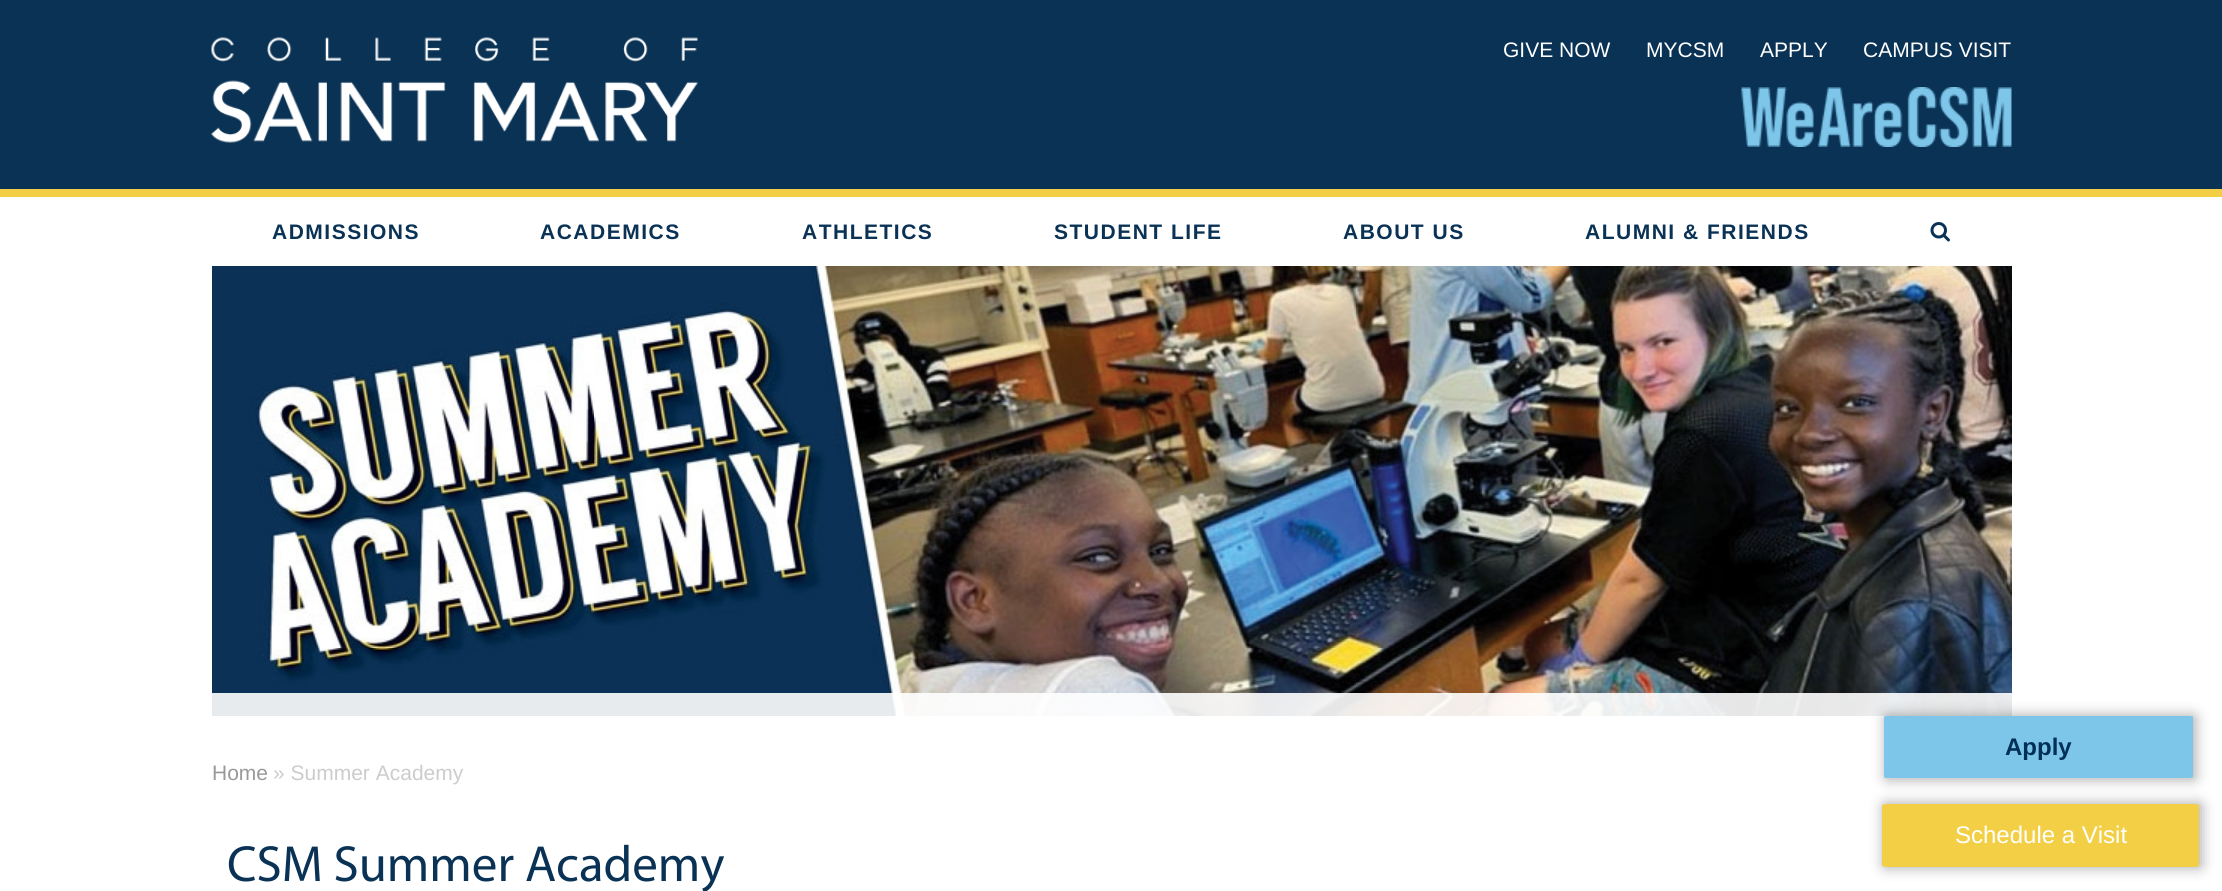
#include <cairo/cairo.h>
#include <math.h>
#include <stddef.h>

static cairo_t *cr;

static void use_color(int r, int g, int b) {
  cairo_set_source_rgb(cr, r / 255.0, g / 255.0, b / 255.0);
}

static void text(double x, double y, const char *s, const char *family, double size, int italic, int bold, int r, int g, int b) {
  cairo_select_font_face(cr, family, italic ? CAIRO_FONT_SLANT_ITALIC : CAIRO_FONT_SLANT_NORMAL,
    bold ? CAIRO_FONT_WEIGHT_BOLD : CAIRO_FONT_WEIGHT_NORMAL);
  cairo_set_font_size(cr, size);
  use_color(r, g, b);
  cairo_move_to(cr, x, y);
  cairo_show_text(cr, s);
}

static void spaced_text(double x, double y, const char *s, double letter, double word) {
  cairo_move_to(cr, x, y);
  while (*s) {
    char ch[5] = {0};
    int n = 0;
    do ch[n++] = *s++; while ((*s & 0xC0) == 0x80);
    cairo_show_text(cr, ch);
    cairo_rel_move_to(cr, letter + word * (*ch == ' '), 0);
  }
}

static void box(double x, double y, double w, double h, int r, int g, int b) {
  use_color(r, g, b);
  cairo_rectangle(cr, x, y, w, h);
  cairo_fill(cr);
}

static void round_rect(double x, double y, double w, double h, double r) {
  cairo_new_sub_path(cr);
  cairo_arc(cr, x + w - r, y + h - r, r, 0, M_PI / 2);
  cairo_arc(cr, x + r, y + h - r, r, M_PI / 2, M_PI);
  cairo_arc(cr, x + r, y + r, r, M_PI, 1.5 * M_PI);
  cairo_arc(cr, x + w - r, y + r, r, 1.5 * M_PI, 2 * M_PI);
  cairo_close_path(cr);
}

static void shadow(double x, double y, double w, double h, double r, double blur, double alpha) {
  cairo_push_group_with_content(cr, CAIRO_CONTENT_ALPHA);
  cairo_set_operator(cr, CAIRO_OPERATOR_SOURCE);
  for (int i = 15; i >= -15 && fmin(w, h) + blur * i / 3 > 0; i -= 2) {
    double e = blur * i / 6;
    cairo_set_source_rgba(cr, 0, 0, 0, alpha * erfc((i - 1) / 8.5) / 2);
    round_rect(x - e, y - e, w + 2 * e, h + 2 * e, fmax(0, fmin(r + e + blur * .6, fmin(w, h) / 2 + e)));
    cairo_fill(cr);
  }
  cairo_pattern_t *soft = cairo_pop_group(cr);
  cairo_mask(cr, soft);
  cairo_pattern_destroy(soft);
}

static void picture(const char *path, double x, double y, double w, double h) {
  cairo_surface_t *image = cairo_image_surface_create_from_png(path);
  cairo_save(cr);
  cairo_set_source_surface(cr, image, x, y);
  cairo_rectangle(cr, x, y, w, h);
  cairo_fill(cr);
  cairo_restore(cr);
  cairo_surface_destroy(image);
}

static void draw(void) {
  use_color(10, 50, 85);
  cairo_paint(cr);
  picture("img_01.png", 1741, 87, 271, 60);
  picture("img_02.png", 211, 37, 487, 106);
  box(0, 197, 2222, 694, 255, 255, 255);
  box(0, 189, 2222, 8, 243, 207, 69);
  picture("img_03.png", 1930, 222, 20, 20);
  picture("img_04.png", 212, 266, 1800, 450);
  cairo_set_source_rgba(cr, 1, 1, 1, 0.9);
  cairo_rectangle(cr, 212, 693, 1800, 23);
  cairo_fill(cr);
  use_color(0, 0, 0);
  shadow(1886, 716, 309, 63, 1.5, 7, 0.35);
  use_color(125, 198, 233);
  cairo_new_path(cr);
  cairo_move_to(cr, 1890, 716);
  cairo_line_to(cr, 2187, 716);
  cairo_curve_to(cr, 2190, 716, 2193, 716, 2193, 717);
  cairo_line_to(cr, 2193, 777);
  cairo_curve_to(cr, 2193, 778, 2190, 778, 2187, 778);
  cairo_line_to(cr, 1890, 778);
  cairo_curve_to(cr, 1887, 778, 1884, 778, 1884, 777);
  cairo_line_to(cr, 1884, 717);
  cairo_curve_to(cr, 1884, 716, 1887, 716, 1890, 716);
  cairo_close_path(cr);
  cairo_fill(cr);
  use_color(0, 0, 0);
  shadow(1884, 804, 317, 63, 1.5, 7, 0.35);
  use_color(243, 207, 69);
  cairo_new_path(cr);
  cairo_move_to(cr, 1889, 804);
  cairo_line_to(cr, 2193, 804);
  cairo_curve_to(cr, 2196, 804, 2199, 805, 2199, 805);
  cairo_line_to(cr, 2199, 866);
  cairo_curve_to(cr, 2199, 866, 2196, 867, 2193, 867);
  cairo_line_to(cr, 1889, 867);
  cairo_curve_to(cr, 1885, 867, 1882, 866, 1882, 866);
  cairo_line_to(cr, 1882, 805);
  cairo_curve_to(cr, 1882, 805, 1885, 804, 1889, 804);
  cairo_close_path(cr);
  cairo_fill(cr);
  text(1503, 57, "GIVE NOW", "Liberation Sans", 21, 0, 0, 255, 255, 255);
  text(1646, 57, "MYCSM", "Liberation Sans", 21, 0, 0, 255, 255, 255);
  text(1760, 57, "APPLY", "Liberation Sans", 21, 0, 0, 255, 255, 255);
  text(1863, 57, "CAMPUS VISIT", "Liberation Sans", 21, 0, 0, 255, 255, 255);
  cairo_select_font_face(cr, "Liberation Sans", CAIRO_FONT_SLANT_NORMAL, CAIRO_FONT_WEIGHT_BOLD);
  use_color(10, 50, 85);
  spaced_text(272, 239, "ADMISSIONS", 1.5, 0);
  spaced_text(540, 239, "ACADEMICS", 1.5, 0);
  spaced_text(802, 239, "ATHLETICS", 1.5, 0);
  spaced_text(1054, 239, "STUDENT LIFE", 1.5, 0);
  spaced_text(1343, 239, "ABOUT US", 1.5, 0);
  spaced_text(1585, 239, "ALUMNI & FRIENDS", 1.5, 0);
  text(2005, 755, "Apply", "Liberation Sans", 24, 0, 1, 0, 48, 87);
  text(212, 780, "Home", "Liberation Sans", 21, 0, 0, 153, 153, 153);
  text(273, 780, "» Summer Academy", "Liberation Sans", 21, 0, 0, 204, 204, 204);
  text(227, 881, "CSM Summer Academy", "myriad", 51, 0, 0, 10, 50, 85);
  text(1955, 843, "Schedule a Visit", "Liberation Sans", 24, 0, 0, 255, 255, 255);
}

int main(void) {
  cairo_surface_t *surface = cairo_image_surface_create(CAIRO_FORMAT_RGB24, 2222, 891);
  cr = cairo_create(surface);
  cairo_font_options_t *options = cairo_font_options_create();
  cairo_font_options_set_hint_metrics(options, CAIRO_HINT_METRICS_OFF);
  cairo_font_options_set_hint_style(options, CAIRO_HINT_STYLE_NONE);
  cairo_set_font_options(cr, options);
  cairo_set_miter_limit(cr, 4);
  draw();
  cairo_surface_write_to_png(surface, "out.png");
  cairo_font_options_destroy(options);
  cairo_destroy(cr);
  cairo_surface_destroy(surface);
  return 0;
}
